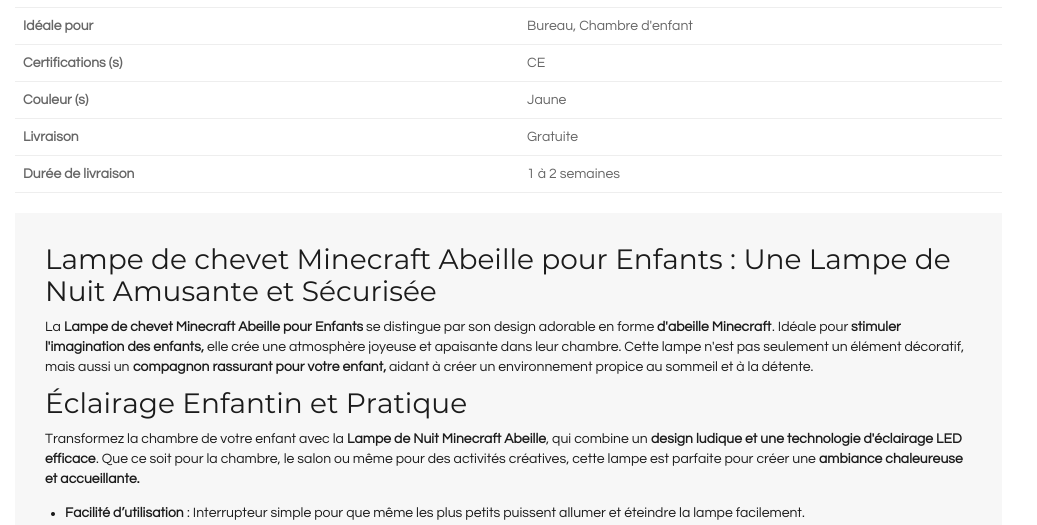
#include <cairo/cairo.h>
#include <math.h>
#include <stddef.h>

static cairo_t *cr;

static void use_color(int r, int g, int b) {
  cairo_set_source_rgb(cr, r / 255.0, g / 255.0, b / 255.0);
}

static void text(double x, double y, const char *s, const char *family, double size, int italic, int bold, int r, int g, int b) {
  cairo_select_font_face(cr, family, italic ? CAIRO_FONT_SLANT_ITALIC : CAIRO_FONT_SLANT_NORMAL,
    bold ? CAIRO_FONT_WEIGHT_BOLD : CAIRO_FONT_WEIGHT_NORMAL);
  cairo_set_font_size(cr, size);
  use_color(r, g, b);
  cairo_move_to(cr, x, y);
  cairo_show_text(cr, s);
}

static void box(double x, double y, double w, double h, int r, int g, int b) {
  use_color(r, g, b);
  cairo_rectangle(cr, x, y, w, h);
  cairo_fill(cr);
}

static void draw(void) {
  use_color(255, 255, 255);
  cairo_paint(cr);
  box(15, 7, 987, 1, 238, 238, 238);
  box(15, 44, 987, 1, 238, 238, 238);
  box(15, 81, 987, 1, 238, 238, 238);
  box(15, 118, 987, 1, 238, 238, 238);
  box(15, 155, 987, 1, 238, 238, 238);
  box(15, 192, 987, 1, 238, 238, 238);
  box(15, 213, 987, 312, 247, 247, 247);
  use_color(27, 27, 27);
  cairo_arc(cr, 53, 514, 2, 0, 2 * M_PI);
  cairo_fill(cr);
  text(23, 30, "Idéale pour", "Questrial", 14, 0, 1, 102, 102, 102);
  text(527, 30, "Bureau, Chambre d'enfant", "Questrial", 14, 0, 0, 102, 102, 102);
  text(23, 67, "Certifications (s)", "Questrial", 14, 0, 1, 102, 102, 102);
  text(527, 67, "CE", "Questrial", 14, 0, 0, 102, 102, 102);
  text(23, 104, "Couleur (s)", "Questrial", 14, 0, 1, 102, 102, 102);
  text(527, 104, "Jaune", "Questrial", 14, 0, 0, 102, 102, 102);
  text(23, 141, "Livraison", "Questrial", 14, 0, 1, 102, 102, 102);
  text(527, 141, "Gratuite", "Questrial", 14, 0, 0, 102, 102, 102);
  text(23, 178, "Durée de livraison", "Questrial", 14, 0, 1, 102, 102, 102);
  text(527, 178, "1 à 2 semaines", "Questrial", 14, 0, 0, 102, 102, 102);
  text(45, 269, "Lampe de chevet Minecraft Abeille pour Enfants : Une Lampe de", "Montserrat", 28, 0, 0, 27, 27, 27);
  text(45, 301, "Nuit Amusante et Sécurisée", "Montserrat", 28, 0, 0, 27, 27, 27);
  text(45, 331, "La", "Questrial", 14, 0, 0, 27, 27, 27);
  text(64, 331, "Lampe de chevet Minecraft Abeille pour Enfants", "Questrial", 14, 0, 1, 27, 27, 27);
  text(366, 331, "se distingue par son design adorable en forme", "Questrial", 14, 0, 0, 27, 27, 27);
  text(657, 331, "d'abeille Minecraft", "Questrial", 14, 0, 1, 27, 27, 27);
  text(772, 331, ". Idéale pour", "Questrial", 14, 0, 0, 27, 27, 27);
  text(851, 331, "stimuler", "Questrial", 14, 0, 1, 27, 27, 27);
  text(45, 351, "l'imagination des enfants,", "Questrial", 14, 0, 1, 27, 27, 27);
  text(207, 351, "elle crée une atmosphère joyeuse et apaisante dans leur chambre. Cette lampe n'est pas seulement un élément décoratif,", "Questrial", 14, 0, 0, 27, 27, 27);
  text(45, 371, "mais aussi un", "Questrial", 14, 0, 0, 27, 27, 27);
  text(133, 371, "compagnon rassurant pour votre enfant,", "Questrial", 14, 0, 1, 27, 27, 27);
  text(389, 371, "aidant à créer un environnement propice au sommeil et à la détente.", "Questrial", 14, 0, 0, 27, 27, 27);
  text(45, 413, "Éclairage Enfantin et Pratique", "Montserrat", 28, 0, 0, 27, 27, 27);
  text(45, 443, "Transformez la chambre de votre enfant avec la", "Questrial", 14, 0, 0, 27, 27, 27);
  text(347, 443, "Lampe de Nuit Minecraft Abeille", "Questrial", 14, 0, 1, 27, 27, 27);
  text(546, 443, ", qui combine un", "Questrial", 14, 0, 0, 27, 27, 27);
  text(651, 443, "design ludique et une technologie d'éclairage LED", "Questrial", 14, 0, 1, 27, 27, 27);
  text(45, 463, "efficace", "Questrial", 14, 0, 1, 27, 27, 27);
  text(96, 463, ". Que ce soit pour la chambre, le salon ou même pour des activités créatives, cette lampe est parfaite pour créer une", "Questrial", 14, 0, 0, 27, 27, 27);
  text(819, 463, "ambiance chaleureuse", "Questrial", 14, 0, 1, 27, 27, 27);
  text(45, 483, "et accueillante.", "Questrial", 14, 0, 1, 27, 27, 27);
  text(65, 517, "Facilité d’utilisation", "Questrial", 14, 0, 1, 27, 27, 27);
  text(187, 517, ": Interrupteur simple pour que même les plus petits puissent allumer et éteindre la lampe facilement.", "Questrial", 14, 0, 0, 27, 27, 27);
}

int main(void) {
  cairo_surface_t *surface = cairo_image_surface_create(CAIRO_FORMAT_RGB24, 1037, 525);
  cr = cairo_create(surface);
  cairo_font_options_t *options = cairo_font_options_create();
  cairo_font_options_set_hint_metrics(options, CAIRO_HINT_METRICS_OFF);
  cairo_font_options_set_hint_style(options, CAIRO_HINT_STYLE_NONE);
  cairo_set_font_options(cr, options);
  cairo_set_miter_limit(cr, 4);
  draw();
  cairo_surface_write_to_png(surface, "out.png");
  cairo_font_options_destroy(options);
  cairo_destroy(cr);
  cairo_surface_destroy(surface);
  return 0;
}
